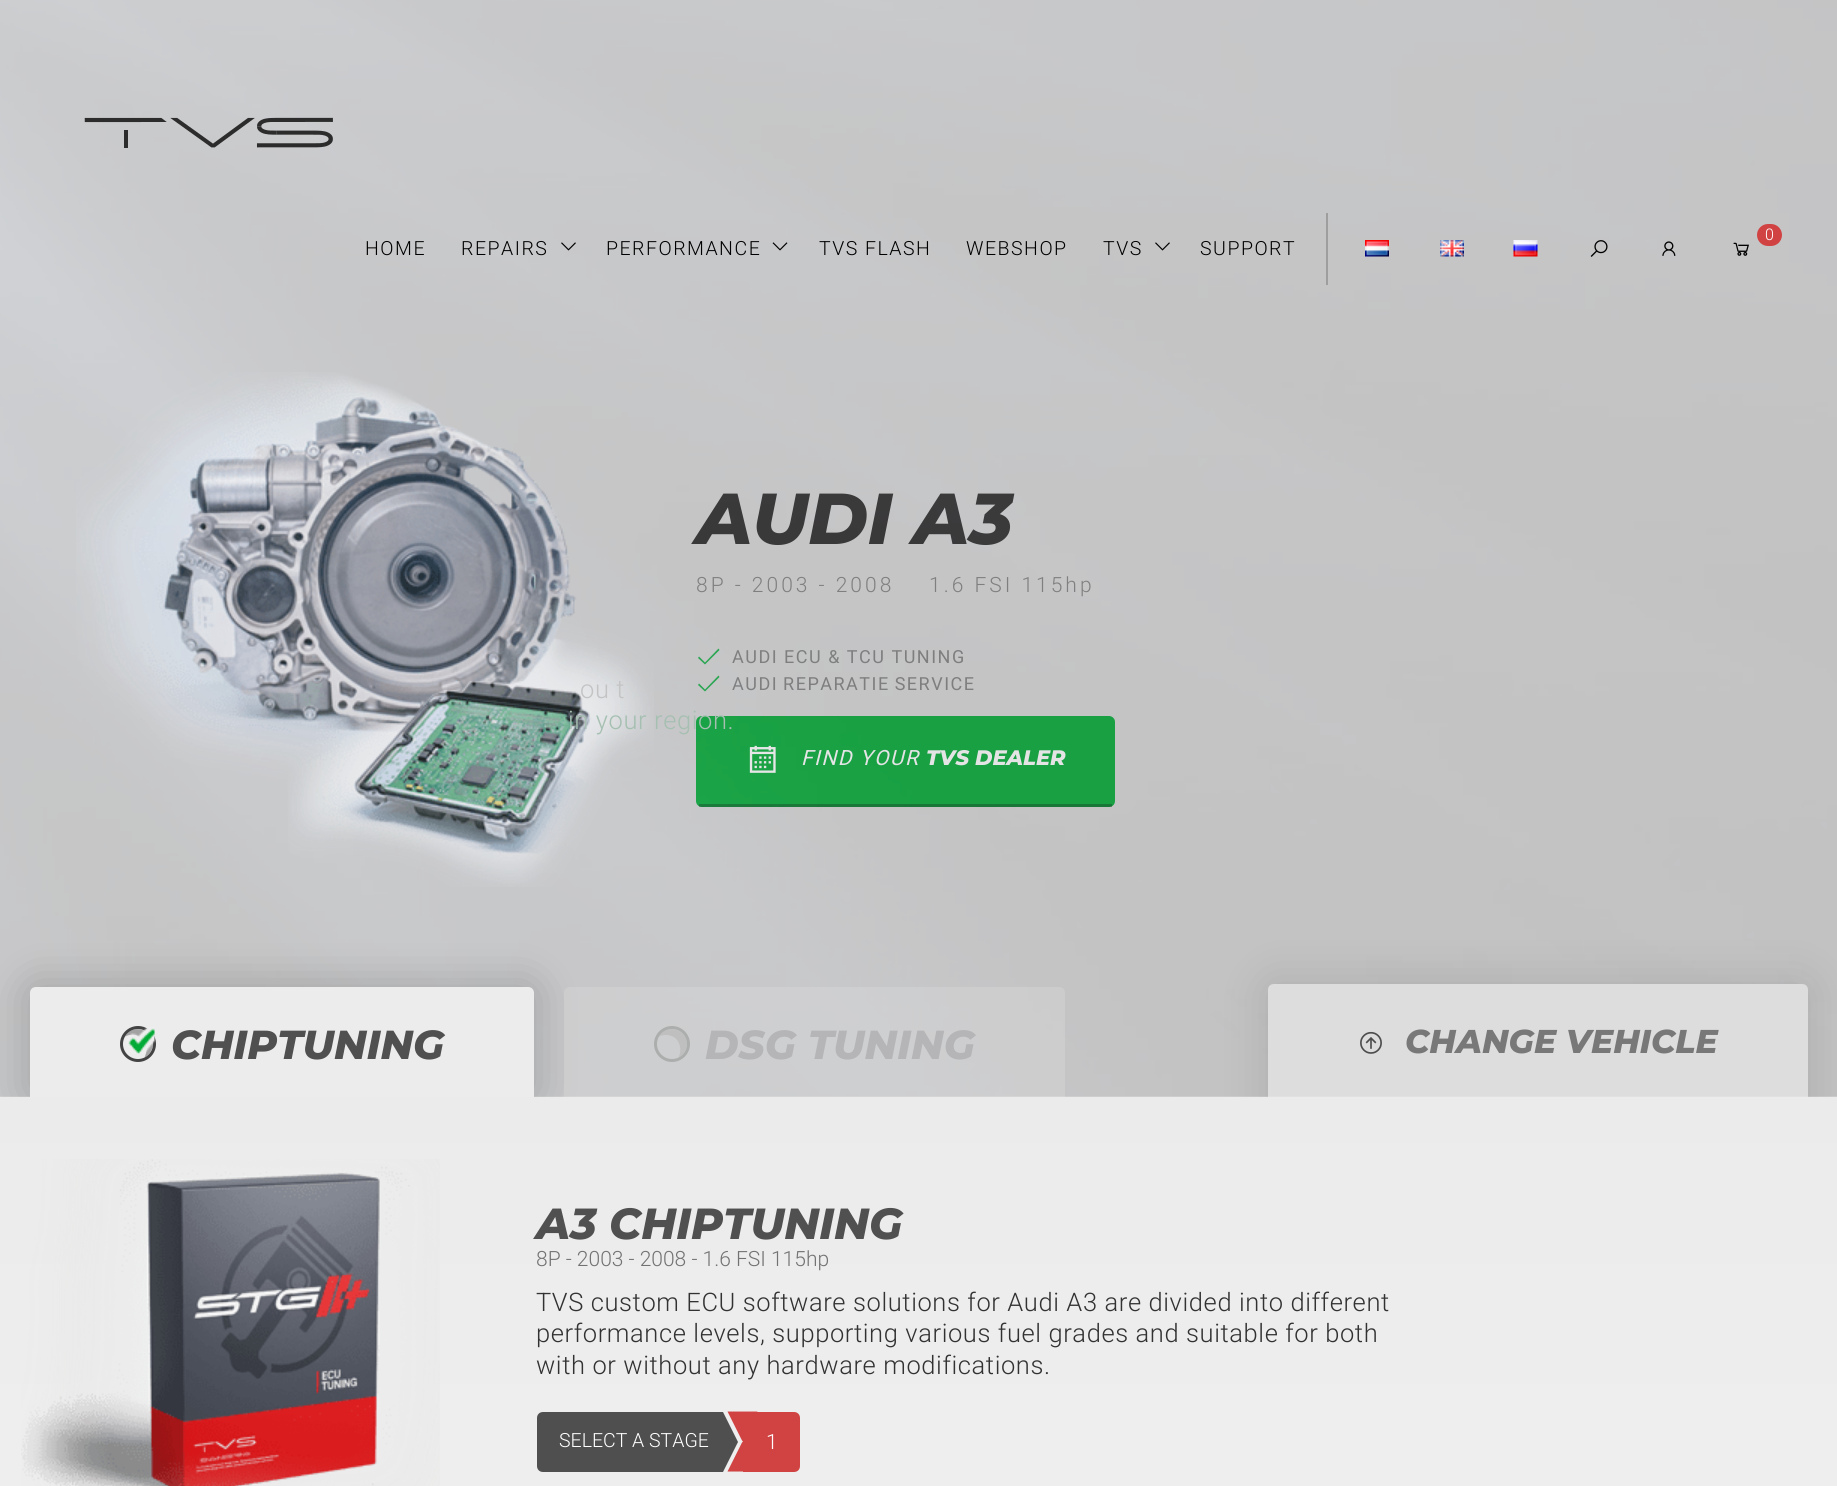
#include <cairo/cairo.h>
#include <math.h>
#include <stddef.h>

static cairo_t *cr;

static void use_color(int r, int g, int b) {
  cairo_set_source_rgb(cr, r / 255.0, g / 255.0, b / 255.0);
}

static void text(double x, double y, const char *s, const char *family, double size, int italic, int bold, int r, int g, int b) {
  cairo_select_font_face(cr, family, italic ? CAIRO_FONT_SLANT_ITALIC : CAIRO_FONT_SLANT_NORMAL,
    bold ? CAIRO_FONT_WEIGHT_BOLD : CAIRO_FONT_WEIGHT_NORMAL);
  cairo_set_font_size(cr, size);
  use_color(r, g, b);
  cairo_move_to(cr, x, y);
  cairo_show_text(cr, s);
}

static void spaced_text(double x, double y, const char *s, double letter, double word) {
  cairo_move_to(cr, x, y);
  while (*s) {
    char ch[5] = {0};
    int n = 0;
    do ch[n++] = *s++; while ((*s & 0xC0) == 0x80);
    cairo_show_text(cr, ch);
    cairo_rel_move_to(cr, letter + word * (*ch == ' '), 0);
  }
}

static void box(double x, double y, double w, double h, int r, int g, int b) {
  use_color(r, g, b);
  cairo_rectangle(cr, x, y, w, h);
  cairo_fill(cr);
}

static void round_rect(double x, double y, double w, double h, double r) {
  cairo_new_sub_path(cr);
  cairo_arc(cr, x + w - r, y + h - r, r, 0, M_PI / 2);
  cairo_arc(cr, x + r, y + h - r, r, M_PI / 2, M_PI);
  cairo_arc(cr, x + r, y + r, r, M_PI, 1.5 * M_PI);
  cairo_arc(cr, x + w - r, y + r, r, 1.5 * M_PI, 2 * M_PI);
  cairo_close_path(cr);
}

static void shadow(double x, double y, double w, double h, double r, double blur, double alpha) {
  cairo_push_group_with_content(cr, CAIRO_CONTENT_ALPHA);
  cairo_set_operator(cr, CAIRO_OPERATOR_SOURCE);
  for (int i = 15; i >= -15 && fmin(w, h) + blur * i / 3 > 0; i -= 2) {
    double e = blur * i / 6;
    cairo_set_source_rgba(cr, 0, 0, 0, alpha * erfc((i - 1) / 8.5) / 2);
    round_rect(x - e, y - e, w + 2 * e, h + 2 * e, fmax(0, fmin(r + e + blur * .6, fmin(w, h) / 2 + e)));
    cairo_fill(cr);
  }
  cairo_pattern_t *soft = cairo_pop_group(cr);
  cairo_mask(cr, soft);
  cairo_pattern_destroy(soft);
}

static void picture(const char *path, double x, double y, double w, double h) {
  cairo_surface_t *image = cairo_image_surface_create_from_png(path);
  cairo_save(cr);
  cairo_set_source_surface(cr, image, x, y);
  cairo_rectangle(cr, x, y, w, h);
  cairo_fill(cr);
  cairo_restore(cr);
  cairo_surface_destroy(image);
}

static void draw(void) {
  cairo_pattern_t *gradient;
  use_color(215, 215, 215);
  cairo_paint(cr);
  picture("img_12.png", 76, 372, 578, 515);
  use_color(19, 175, 68);
  cairo_new_path(cr);
  cairo_move_to(cr, 718.5, 648.5);
  cairo_line_to(cr, 719.5, 650);
  cairo_line_to(cr, 705, 664.5);
  cairo_line_to(cr, 698, 658);
  cairo_line_to(cr, 699, 656.5);
  cairo_line_to(cr, 705, 662.5);
  cairo_close_path(cr);
  cairo_move_to(cr, 718.5, 675.5);
  cairo_line_to(cr, 719.5, 677);
  cairo_line_to(cr, 705, 691.5);
  cairo_line_to(cr, 698, 685);
  cairo_line_to(cr, 699, 683.5);
  cairo_line_to(cr, 705, 689.5);
  cairo_close_path(cr);
  cairo_fill(cr);
  use_color(0, 170, 53);
  round_rect(696, 716, 419, 91, 6);
  cairo_fill(cr);
  cairo_set_source_rgba(cr, 0, 0, 0, 0.3);
  cairo_rectangle(cr, 699, 804, 413, 3);
  cairo_fill(cr);
  picture("img_13.png", 749, 745, 27, 28);
  text(696, 544, "AUDI A3", "Montserrat ExtraBold", 72, 1, 0, 41, 40, 40);
  cairo_select_font_face(cr, "Roboto Light", CAIRO_FONT_SLANT_NORMAL, CAIRO_FONT_WEIGHT_NORMAL);
  cairo_set_font_size(cr, 21);
  use_color(128, 128, 128);
  spaced_text(696, 592, "8P - 2003 - 2008", 3, 0);
  spaced_text(929, 592, "1.6 FSI 115hp", 3, 0);
  cairo_select_font_face(cr, "Roboto", CAIRO_FONT_SLANT_NORMAL, CAIRO_FONT_WEIGHT_NORMAL);
  cairo_set_font_size(cr, 18);
  spaced_text(732, 663, "AUDI ECU & TCU TUNING", 1.5, 0);
  spaced_text(732, 690, "AUDI REPARATIE SERVICE", 1.5, -1);
  cairo_select_font_face(cr, "Roboto", CAIRO_FONT_SLANT_ITALIC, CAIRO_FONT_WEIGHT_NORMAL);
  cairo_set_font_size(cr, 21);
  use_color(255, 255, 255);
  spaced_text(801, 765, "FIND YOUR", 1.5, 0);
  text(926, 765, "TVS DEALER", "Montserrat ExtraBold", 21, 1, 0, 255, 255, 255);
  picture("img_01.png", 0, 0, 1837, 1097);
  use_color(209, 67, 67);
  round_rect(1757, 224, 25, 22, 11);
  cairo_fill(cr);
  text(1765, 240, "0", "Roboto Light", 16, 0, 0, 255, 255, 255);
  picture("img_03.png", 1733, 242, 16, 14);
  picture("img_05.png", 1662, 241, 14, 15);
  picture("img_04.png", 1590, 240, 18, 17);
  picture("img_08.png", 1513, 240, 25, 17);
  picture("img_07.png", 1440, 240, 24, 17);
  picture("img_06.png", 1365, 240, 24, 17);
  box(1326, 213, 2, 72, 158, 158, 159);
  picture("img_02.png", 84, 117, 249, 31);
  cairo_set_font_size(cr, 19.5);
  use_color(0, 0, 0);
  spaced_text(1200, 255, "SUPPORT", 1.5, 0);
  picture("img_11.png", 1155, 242, 15, 9);
  spaced_text(1103, 255, "TVS", 1.5, 0);
  spaced_text(966, 255, "WEBSHOP", 1.5, 0);
  spaced_text(819, 255, "TVS FLASH", 1.5, 0);
  picture("img_10.png", 772, 242, 16, 9);
  spaced_text(606, 255, "PERFORMANCE", 1.5, 0);
  picture("img_09.png", 561, 242, 15, 9);
  spaced_text(461, 255, "REPAIRS", 1.5, 0);
  spaced_text(365, 255, "HOME", 1.5, 0);
  use_color(0, 0, 0);
  shadow(24, 981, 516, 122, 12, 21, 0.16);
  use_color(236, 236, 236);
  cairo_new_path(cr);
  cairo_move_to(cr, 36, 987);
  cairo_line_to(cr, 528, 987);
  cairo_curve_to(cr, 531.5, 987, 534, 989.5, 534, 993);
  cairo_line_to(cr, 534, 1097);
  cairo_line_to(cr, 30, 1097);
  cairo_line_to(cr, 30, 993);
  cairo_curve_to(cr, 30, 989.5, 32.5, 987, 36, 987);
  cairo_close_path(cr);
  cairo_fill(cr);
  use_color(162, 162, 162);
  cairo_new_path(cr);
  cairo_move_to(cr, 132, 1035);
  cairo_curve_to(cr, 145, 1035, 149, 1048.5, 144.5, 1057.5);
  cairo_curve_to(cr, 147.5, 1056, 150, 1053.5, 151.5, 1050);
  cairo_curve_to(cr, 159.5, 1033, 134.5, 1020.5, 125, 1036.5);
  cairo_curve_to(cr, 127, 1035.5, 129.5, 1035, 132, 1035);
  cairo_close_path(cr);
  cairo_fill(cr);
  cairo_arc(cr, 138, 1044, 16.5, 0, 2 * M_PI);
  use_color(67, 67, 67);
  cairo_set_line_width(cr, 3);
  cairo_stroke(cr);
  picture("img_14.png", 127, 1027, 28, 27);
  text(171, 1059, "CHIPTUNING", "Montserrat ExtraBold", 40.5, 1, 0, 80, 80, 80);
  cairo_set_source_rgba(cr, 0.925, 0.925, 0.925, 0.2);
  cairo_new_path(cr);
  cairo_move_to(cr, 570, 987);
  cairo_line_to(cr, 1059, 987);
  cairo_curve_to(cr, 1062.5, 987, 1065, 989.5, 1065, 993);
  cairo_line_to(cr, 1065, 1097);
  cairo_line_to(cr, 564, 1097);
  cairo_line_to(cr, 564, 993);
  cairo_curve_to(cr, 564, 989.5, 566.5, 987, 570, 987);
  cairo_close_path(cr);
  cairo_fill(cr);
  use_color(191, 191, 192);
  cairo_new_path(cr);
  cairo_move_to(cr, 666, 1035);
  cairo_curve_to(cr, 679, 1035, 683, 1048.5, 678.5, 1057.5);
  cairo_curve_to(cr, 681.5, 1056, 684, 1053.5, 685.5, 1050);
  cairo_curve_to(cr, 693.5, 1033, 668.5, 1020.5, 659, 1036.5);
  cairo_curve_to(cr, 661, 1035.5, 663.5, 1035, 666, 1035);
  cairo_close_path(cr);
  cairo_fill(cr);
  cairo_arc(cr, 672, 1044, 16.5, 0, 2 * M_PI);
  use_color(172, 173, 173);
  cairo_stroke(cr);
  text(705, 1059, "DSG TUNING", "Montserrat ExtraBold", 40.5, 1, 0, 181, 181, 183);
  cairo_save(cr);
  cairo_set_fill_rule(cr, CAIRO_FILL_RULE_EVEN_ODD);
  cairo_new_path(cr);
  cairo_move_to(cr, 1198, 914);
  cairo_line_to(cr, 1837, 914);
  cairo_line_to(cr, 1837, 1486);
  cairo_line_to(cr, 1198, 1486);
  cairo_close_path(cr);
  cairo_move_to(cr, 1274, 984);
  cairo_line_to(cr, 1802, 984);
  cairo_curve_to(cr, 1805.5, 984, 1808, 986.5, 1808, 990);
  cairo_line_to(cr, 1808, 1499);
  cairo_line_to(cr, 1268, 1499);
  cairo_line_to(cr, 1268, 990);
  cairo_curve_to(cr, 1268, 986.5, 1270.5, 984, 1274, 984);
  cairo_close_path(cr);
  cairo_clip(cr);
  use_color(0, 0, 0);
  shadow(1262, 978, 552, 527, 12, 21, 0.1);
  cairo_restore(cr);
  cairo_set_source_rgba(cr, 0.925, 0.925, 0.925, 0.65);
  cairo_new_path(cr);
  cairo_move_to(cr, 1274, 984);
  cairo_line_to(cr, 1802, 984);
  cairo_curve_to(cr, 1805.5, 984, 1808, 986.5, 1808, 990);
  cairo_line_to(cr, 1808, 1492);
  cairo_line_to(cr, 1268, 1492);
  cairo_line_to(cr, 1268, 990);
  cairo_curve_to(cr, 1268, 986.5, 1270.5, 984, 1274, 984);
  cairo_close_path(cr);
  cairo_fill(cr);
  picture("img_15.png", 1360, 1031, 22, 23);
  text(1405, 1053, "CHANGE VEHICLE", "Montserrat ExtraBold", 33, 1, 0, 120, 120, 120);
  cairo_select_font_face(cr, "Roboto Light", CAIRO_FONT_SLANT_NORMAL, CAIRO_FONT_WEIGHT_NORMAL);
  cairo_set_font_size(cr, 25.5);
  use_color(195, 195, 196);
  spaced_text(580, 698, "ou t", 0.6, 0);
  use_color(165, 191, 177);
  spaced_text(568, 729, "in your region.", 0.6, 0);
  gradient = cairo_pattern_create_linear(919, 1096, 919, 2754);
  cairo_pattern_add_color_stop_rgba(gradient, 0, 0.922, 0.922, 0.922, 1);
  cairo_pattern_add_color_stop_rgba(gradient, 1, 0.976, 0.976, 0.976, 1);
  cairo_set_source(cr, gradient);
  cairo_pattern_destroy(gradient);
  cairo_rectangle(cr, 0, 1097, 1837, 389);
  cairo_fill(cr);
  picture("img_16.png", 21, 1159, 419, 327);
  text(536, 1239, "A3 CHIPTUNING", "Montserrat ExtraBold", 43.5, 1, 0, 80, 80, 80);
  text(536, 1266, "8P - 2003 - 2008 - 1.6 FSI 115hp", "Roboto Light", 21, 0, 0, 114, 114, 114);
  cairo_set_font_size(cr, 25.5);
  use_color(50, 50, 50);
  spaced_text(536, 1311, "TVS custom ECU software solutions for Audi A3 are divided into different", 0.6, 0);
  spaced_text(536, 1342, "performance levels, supporting various fuel grades and suitable for both", 0.6, 0);
  spaced_text(536, 1374, "with or without any hardware modifications.", 0.6, 0);
  use_color(79, 79, 79);
  cairo_new_path(cr);
  cairo_move_to(cr, 543, 1412);
  cairo_line_to(cr, 723, 1412);
  cairo_line_to(cr, 723, 1472);
  cairo_line_to(cr, 543, 1472);
  cairo_curve_to(cr, 539.5, 1472, 537, 1469.5, 537, 1466);
  cairo_line_to(cr, 537, 1418);
  cairo_curve_to(cr, 537, 1414.5, 539.5, 1412, 543, 1412);
  cairo_close_path(cr);
  cairo_fill(cr);
  text(559, 1447, "SELECT A STAGE", "Roboto Light", 19.5, 0, 0, 255, 255, 255);
  use_color(79, 79, 79);
  cairo_new_path(cr);
  cairo_move_to(cr, 723, 1472);
  cairo_line_to(cr, 723, 1412);
  cairo_line_to(cr, 738, 1442);
  cairo_close_path(cr);
  cairo_fill(cr);
  use_color(209, 67, 67);
  cairo_new_path(cr);
  cairo_move_to(cr, 758, 1412);
  cairo_line_to(cr, 794, 1412);
  cairo_curve_to(cr, 797.5, 1412, 800, 1414.5, 800, 1418);
  cairo_line_to(cr, 800, 1466);
  cairo_curve_to(cr, 800, 1469.5, 797.5, 1472, 794, 1472);
  cairo_line_to(cr, 758, 1472);
  cairo_close_path(cr);
  cairo_fill(cr);
  cairo_new_path(cr);
  cairo_move_to(cr, 727.5, 1411.5);
  cairo_line_to(cr, 757.5, 1411.5);
  cairo_line_to(cr, 742.5, 1441.5);
  cairo_close_path(cr);
  cairo_fill(cr);
  box(743, 1412, 15, 60, 209, 67, 67);
  cairo_new_path(cr);
  cairo_move_to(cr, 757.5, 1471.5);
  cairo_line_to(cr, 727.5, 1471.5);
  cairo_line_to(cr, 742.5, 1441.5);
  cairo_close_path(cr);
  cairo_fill(cr);
  text(766, 1449, "1", "Roboto Light", 21, 0, 0, 255, 255, 255);
}

int main(void) {
  cairo_surface_t *surface = cairo_image_surface_create(CAIRO_FORMAT_RGB24, 1837, 1486);
  cr = cairo_create(surface);
  cairo_font_options_t *options = cairo_font_options_create();
  cairo_font_options_set_hint_metrics(options, CAIRO_HINT_METRICS_OFF);
  cairo_font_options_set_hint_style(options, CAIRO_HINT_STYLE_NONE);
  cairo_set_font_options(cr, options);
  cairo_set_miter_limit(cr, 4);
  draw();
  cairo_surface_write_to_png(surface, "out.png");
  cairo_font_options_destroy(options);
  cairo_destroy(cr);
  cairo_surface_destroy(surface);
  return 0;
}
